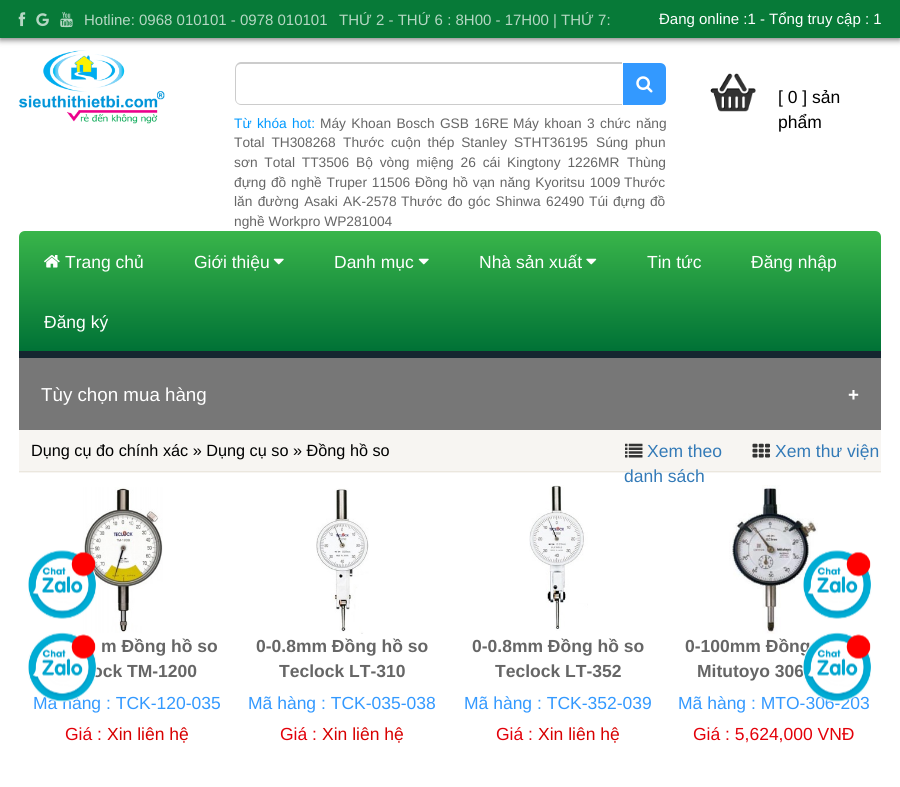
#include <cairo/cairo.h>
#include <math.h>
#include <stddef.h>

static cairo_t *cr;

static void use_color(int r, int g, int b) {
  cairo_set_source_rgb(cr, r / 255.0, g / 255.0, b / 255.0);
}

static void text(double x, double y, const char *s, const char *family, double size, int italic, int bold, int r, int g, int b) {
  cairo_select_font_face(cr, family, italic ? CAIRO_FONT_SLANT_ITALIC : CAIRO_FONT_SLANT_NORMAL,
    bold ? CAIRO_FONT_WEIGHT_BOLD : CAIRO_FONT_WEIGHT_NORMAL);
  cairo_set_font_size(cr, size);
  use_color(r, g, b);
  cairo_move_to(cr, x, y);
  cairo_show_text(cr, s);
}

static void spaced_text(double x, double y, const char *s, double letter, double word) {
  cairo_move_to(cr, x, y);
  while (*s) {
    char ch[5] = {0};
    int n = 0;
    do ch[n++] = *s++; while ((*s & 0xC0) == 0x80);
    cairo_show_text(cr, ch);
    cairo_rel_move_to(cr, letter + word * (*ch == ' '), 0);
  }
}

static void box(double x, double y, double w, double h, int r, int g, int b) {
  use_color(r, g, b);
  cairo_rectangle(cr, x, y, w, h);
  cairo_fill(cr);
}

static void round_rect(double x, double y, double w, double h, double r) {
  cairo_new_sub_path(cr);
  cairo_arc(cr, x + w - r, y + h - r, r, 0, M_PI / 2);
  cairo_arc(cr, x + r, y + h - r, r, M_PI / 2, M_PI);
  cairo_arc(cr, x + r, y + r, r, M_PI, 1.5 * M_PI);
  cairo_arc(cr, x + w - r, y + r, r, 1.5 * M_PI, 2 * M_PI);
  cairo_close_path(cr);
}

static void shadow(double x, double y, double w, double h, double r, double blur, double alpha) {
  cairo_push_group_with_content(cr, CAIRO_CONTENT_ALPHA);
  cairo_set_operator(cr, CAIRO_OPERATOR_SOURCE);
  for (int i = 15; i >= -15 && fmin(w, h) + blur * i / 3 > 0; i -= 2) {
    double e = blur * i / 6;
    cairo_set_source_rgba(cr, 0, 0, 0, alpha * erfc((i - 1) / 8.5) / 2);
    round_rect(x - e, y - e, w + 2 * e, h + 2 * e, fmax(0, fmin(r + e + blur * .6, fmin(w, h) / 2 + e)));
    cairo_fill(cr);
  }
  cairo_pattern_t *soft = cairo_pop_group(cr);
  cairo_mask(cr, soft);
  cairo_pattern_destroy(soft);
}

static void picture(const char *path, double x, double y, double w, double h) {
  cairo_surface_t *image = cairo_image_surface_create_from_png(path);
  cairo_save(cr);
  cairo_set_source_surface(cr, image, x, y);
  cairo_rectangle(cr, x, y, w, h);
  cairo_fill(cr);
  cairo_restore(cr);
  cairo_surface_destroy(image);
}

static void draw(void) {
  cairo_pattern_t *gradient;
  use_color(255, 255, 255);
  cairo_paint(cr);
  use_color(0, 0, 0);
  shadow(0, 3, 900, 37, 0, 3, 0.5);
  box(0, 0, 900, 38, 7, 122, 56);
  picture("img_01.png", 18, 12, 8, 15);
  picture("img_02.png", 36, 13, 13, 14);
  picture("img_03.png", 60, 12, 13, 16);
  picture("img_04.png", 18, 50, 147, 74);
  picture("img_05.png", 710, 73, 46, 39);
  use_color(204, 204, 204);
  cairo_set_fill_rule(cr, CAIRO_FILL_RULE_EVEN_ODD);
  cairo_new_path(cr);
  cairo_move_to(cr, 241, 62);
  cairo_line_to(cr, 622, 62);
  cairo_line_to(cr, 622, 105);
  cairo_line_to(cr, 241, 105);
  cairo_curve_to(cr, 238, 105, 235, 102, 235, 99);
  cairo_line_to(cr, 235, 69);
  cairo_curve_to(cr, 235, 65, 238, 62, 241, 62);
  cairo_close_path(cr);
  cairo_move_to(cr, 241, 64);
  cairo_line_to(cr, 622, 64);
  cairo_line_to(cr, 622, 104);
  cairo_line_to(cr, 241, 104);
  cairo_curve_to(cr, 238, 104, 236, 102, 236, 99);
  cairo_line_to(cr, 236, 69);
  cairo_curve_to(cr, 236, 66, 238, 64, 241, 64);
  cairo_close_path(cr);
  cairo_fill(cr);
  use_color(51, 153, 255);
  cairo_new_path(cr);
  cairo_move_to(cr, 623, 63);
  cairo_line_to(cr, 660, 63);
  cairo_curve_to(cr, 663.5, 63, 666, 65.5, 666, 69);
  cairo_line_to(cr, 666, 99);
  cairo_curve_to(cr, 666, 102.5, 663.5, 105, 660, 105);
  cairo_line_to(cr, 623, 105);
  cairo_close_path(cr);
  cairo_fill(cr);
  picture("img_06.png", 636, 76, 17, 17);
  gradient = cairo_pattern_create_linear(450, 231, 450, 351);
  cairo_pattern_add_color_stop_rgba(gradient, 0, 0.224, 0.71, 0.29, 1);
  cairo_pattern_add_color_stop_rgba(gradient, 1, 0, 0.447, 0.212, 1);
  cairo_set_source(cr, gradient);
  cairo_pattern_destroy(gradient);
  cairo_new_path(cr);
  cairo_move_to(cr, 25, 231);
  cairo_line_to(cr, 875, 231);
  cairo_curve_to(cr, 878.5, 231, 881, 233.5, 881, 237);
  cairo_line_to(cr, 881, 351);
  cairo_line_to(cr, 19, 351);
  cairo_line_to(cr, 19, 237);
  cairo_curve_to(cr, 19, 233.5, 21.5, 231, 25, 231);
  cairo_close_path(cr);
  cairo_fill(cr);
  box(19, 351, 862, 7, 21, 38, 48);
  picture("img_07.png", 44, 255, 16, 13);
  picture("img_08.png", 273, 258, 11, 7);
  picture("img_08.png", 418, 258, 11, 7);
  picture("img_09.png", 586, 258, 11, 7);
  box(19, 358, 862, 72, 119, 119, 119);
  box(19, 430, 862, 43, 247, 245, 242);
  box(19, 471, 862, 1, 235, 231, 222);
  picture("img_10.png", 625, 443, 18, 15);
  picture("img_11.png", 752, 443, 18, 15);
  picture("img_12.png", 83, 487, 80, 146);
  picture("img_13.png", 316, 488, 53, 146);
  picture("img_14.png", 529, 485, 59, 146);
  picture("img_15.png", 729, 485, 89, 149);
  picture("img_16.png", 28, 550, 68, 69);
  picture("img_18.png", 803, 550, 69, 69);
  text(84, 25, "Hotline: 0968 010101 - 0978 010101", "Liberation Sans", 15, 0, 0, 181, 215, 195);
  text(339, 25, "THỨ 2 - THỨ 6 : 8H00 - 17H00 | THỨ 7:", "Liberation Sans", 15, 0, 0, 181, 215, 195);
  text(659, 24, "Đang online :1 - Tổng truy cập : 1", "Liberation Sans", 15, 0, 0, 255, 255, 255);
  text(778, 103, "[ 0 ] sản", "Liberation Sans", 17.5, 0, 0, 0, 0, 0);
  text(778, 128, "phẩm", "Liberation Sans", 17.5, 0, 0, 0, 0, 0);
  cairo_set_font_size(cr, 13.75);
  use_color(0, 153, 255);
  spaced_text(234, 128, "Từ khóa hot:", 0, 1.5);
  use_color(102, 102, 102);
  spaced_text(320, 128, "Máy Khoan Bosch GSB 16RE", 0, 1.5);
  spaced_text(513, 128, "Máy khoan 3 chức năng", 0, 1.5);
  spaced_text(234, 147, "Total TH308268", 0, 3);
  spaced_text(343, 147, "Thước cuộn thép Stanley STHT36195", 0, 3);
  spaced_text(596, 147, "Súng phun", 0, 3);
  spaced_text(234, 167, "sơn Total TT3506", 0, 3);
  spaced_text(356, 167, "Bộ vòng miệng 26 cái Kingtony 1226MR", 0, 3);
  text(627, 167, "Thùng", "Liberation Sans", 13.75, 0, 0, 102, 102, 102);
  spaced_text(234, 187, "đựng đồ nghề Truper 11506", 0, 1);
  spaced_text(415, 187, "Đồng hồ vạn năng Kyoritsu 1009", 0, 1);
  text(624, 187, "Thước", "Liberation Sans", 13.75, 0, 0, 102, 102, 102);
  spaced_text(234, 206, "lăn đường Asaki AK-2578", 0, 1.5);
  spaced_text(401, 206, "Thước đo góc Shinwa 62490", 0, 1.5);
  spaced_text(589, 206, "Túi đựng đồ", 0, 1);
  text(234, 226, "nghề Workpro WP281004", "Liberation Sans", 13.75, 0, 0, 102, 102, 102);
  text(65, 268, "Trang chủ", "Liberation Sans", 17.5, 0, 0, 255, 255, 255);
  text(194, 268, "Giới thiệu", "Liberation Sans", 17.5, 0, 0, 255, 255, 255);
  text(334, 268, "Danh mục", "Liberation Sans", 17.5, 0, 0, 255, 255, 255);
  text(479, 268, "Nhà sản xuất", "Liberation Sans", 17.5, 0, 0, 255, 255, 255);
  text(647, 268, "Tin tức", "Liberation Sans", 17.5, 0, 0, 255, 255, 255);
  text(751, 268, "Đăng nhập", "Liberation Sans", 17.5, 0, 0, 255, 255, 255);
  text(44, 328, "Đăng ký", "Liberation Sans", 17.5, 0, 0, 255, 255, 255);
  text(41, 401, "Tùy chọn mua hàng", "Liberation Sans", 18.75, 0, 0, 255, 255, 255);
  text(848, 401, "+", "Liberation Sans", 18.75, 0, 1, 255, 255, 255);
  text(31, 456, "Dụng cụ đo chính xác » Dụng cụ so » Đồng hồ so", "Liberation Sans", 16.25, 0, 0, 0, 0, 0);
  text(647, 457, "Xem theo", "Liberation Sans", 17.5, 0, 0, 51, 122, 183);
  text(624, 482, "danh sách", "Liberation Sans", 17.5, 0, 0, 51, 122, 183);
  text(775, 457, "Xem thư viện", "Liberation Sans", 17.5, 0, 0, 51, 122, 183);
  text(101, 652, "m Đồng hồ so", "Liberation Sans", 17.5, 0, 1, 102, 102, 102);
  text(92, 677, "ock TM-1200", "Liberation Sans", 17.5, 0, 1, 102, 102, 102);
  text(33, 709, "Mã hàng : TCK-120-035", "Liberation Sans", 17.5, 0, 0, 51, 153, 255);
  text(65, 740, "Giá :", "Liberation Sans", 17.5, 0, 0, 227, 0, 9);
  text(107, 740, "Xin liên hệ", "Liberation Sans", 17.5, 0, 0, 215, 0, 0);
  text(256, 652, "0-0.8mm Đồng hồ so", "Liberation Sans", 17.5, 0, 1, 102, 102, 102);
  text(279, 677, "Teclock LT-310", "Liberation Sans", 17.5, 0, 1, 102, 102, 102);
  text(248, 709, "Mã hàng : TCK-035-038", "Liberation Sans", 17.5, 0, 0, 51, 153, 255);
  text(280, 740, "Giá :", "Liberation Sans", 17.5, 0, 0, 227, 0, 9);
  text(322, 740, "Xin liên hệ", "Liberation Sans", 17.5, 0, 0, 215, 0, 0);
  text(472, 652, "0-0.8mm Đồng hồ so", "Liberation Sans", 17.5, 0, 1, 102, 102, 102);
  text(495, 677, "Teclock LT-352", "Liberation Sans", 17.5, 0, 1, 102, 102, 102);
  text(464, 709, "Mã hàng : TCK-352-039", "Liberation Sans", 17.5, 0, 0, 51, 153, 255);
  text(496, 740, "Giá :", "Liberation Sans", 17.5, 0, 0, 227, 0, 9);
  text(538, 740, "Xin liên hệ", "Liberation Sans", 17.5, 0, 0, 215, 0, 0);
  text(685, 652, "0-100mm Đồng", "Liberation Sans", 17.5, 0, 1, 102, 102, 102);
  text(697, 677, "Mitutoyo 306", "Liberation Sans", 17.5, 0, 1, 102, 102, 102);
  text(678, 709, "Mã hàng : MTO-306-203", "Liberation Sans", 17.5, 0, 0, 51, 153, 255);
  text(693, 740, "Giá : 5,624,000 VNĐ", "Liberation Sans", 17.5, 0, 0, 227, 0, 9);
  picture("img_17.png", 28, 632, 69, 71);
  picture("img_19.png", 802, 632, 69, 70);
}

int main(void) {
  cairo_surface_t *surface = cairo_image_surface_create(CAIRO_FORMAT_RGB24, 900, 787);
  cr = cairo_create(surface);
  cairo_font_options_t *options = cairo_font_options_create();
  cairo_font_options_set_hint_metrics(options, CAIRO_HINT_METRICS_OFF);
  cairo_font_options_set_hint_style(options, CAIRO_HINT_STYLE_NONE);
  cairo_set_font_options(cr, options);
  cairo_set_miter_limit(cr, 4);
  draw();
  cairo_surface_write_to_png(surface, "out.png");
  cairo_font_options_destroy(options);
  cairo_destroy(cr);
  cairo_surface_destroy(surface);
  return 0;
}
